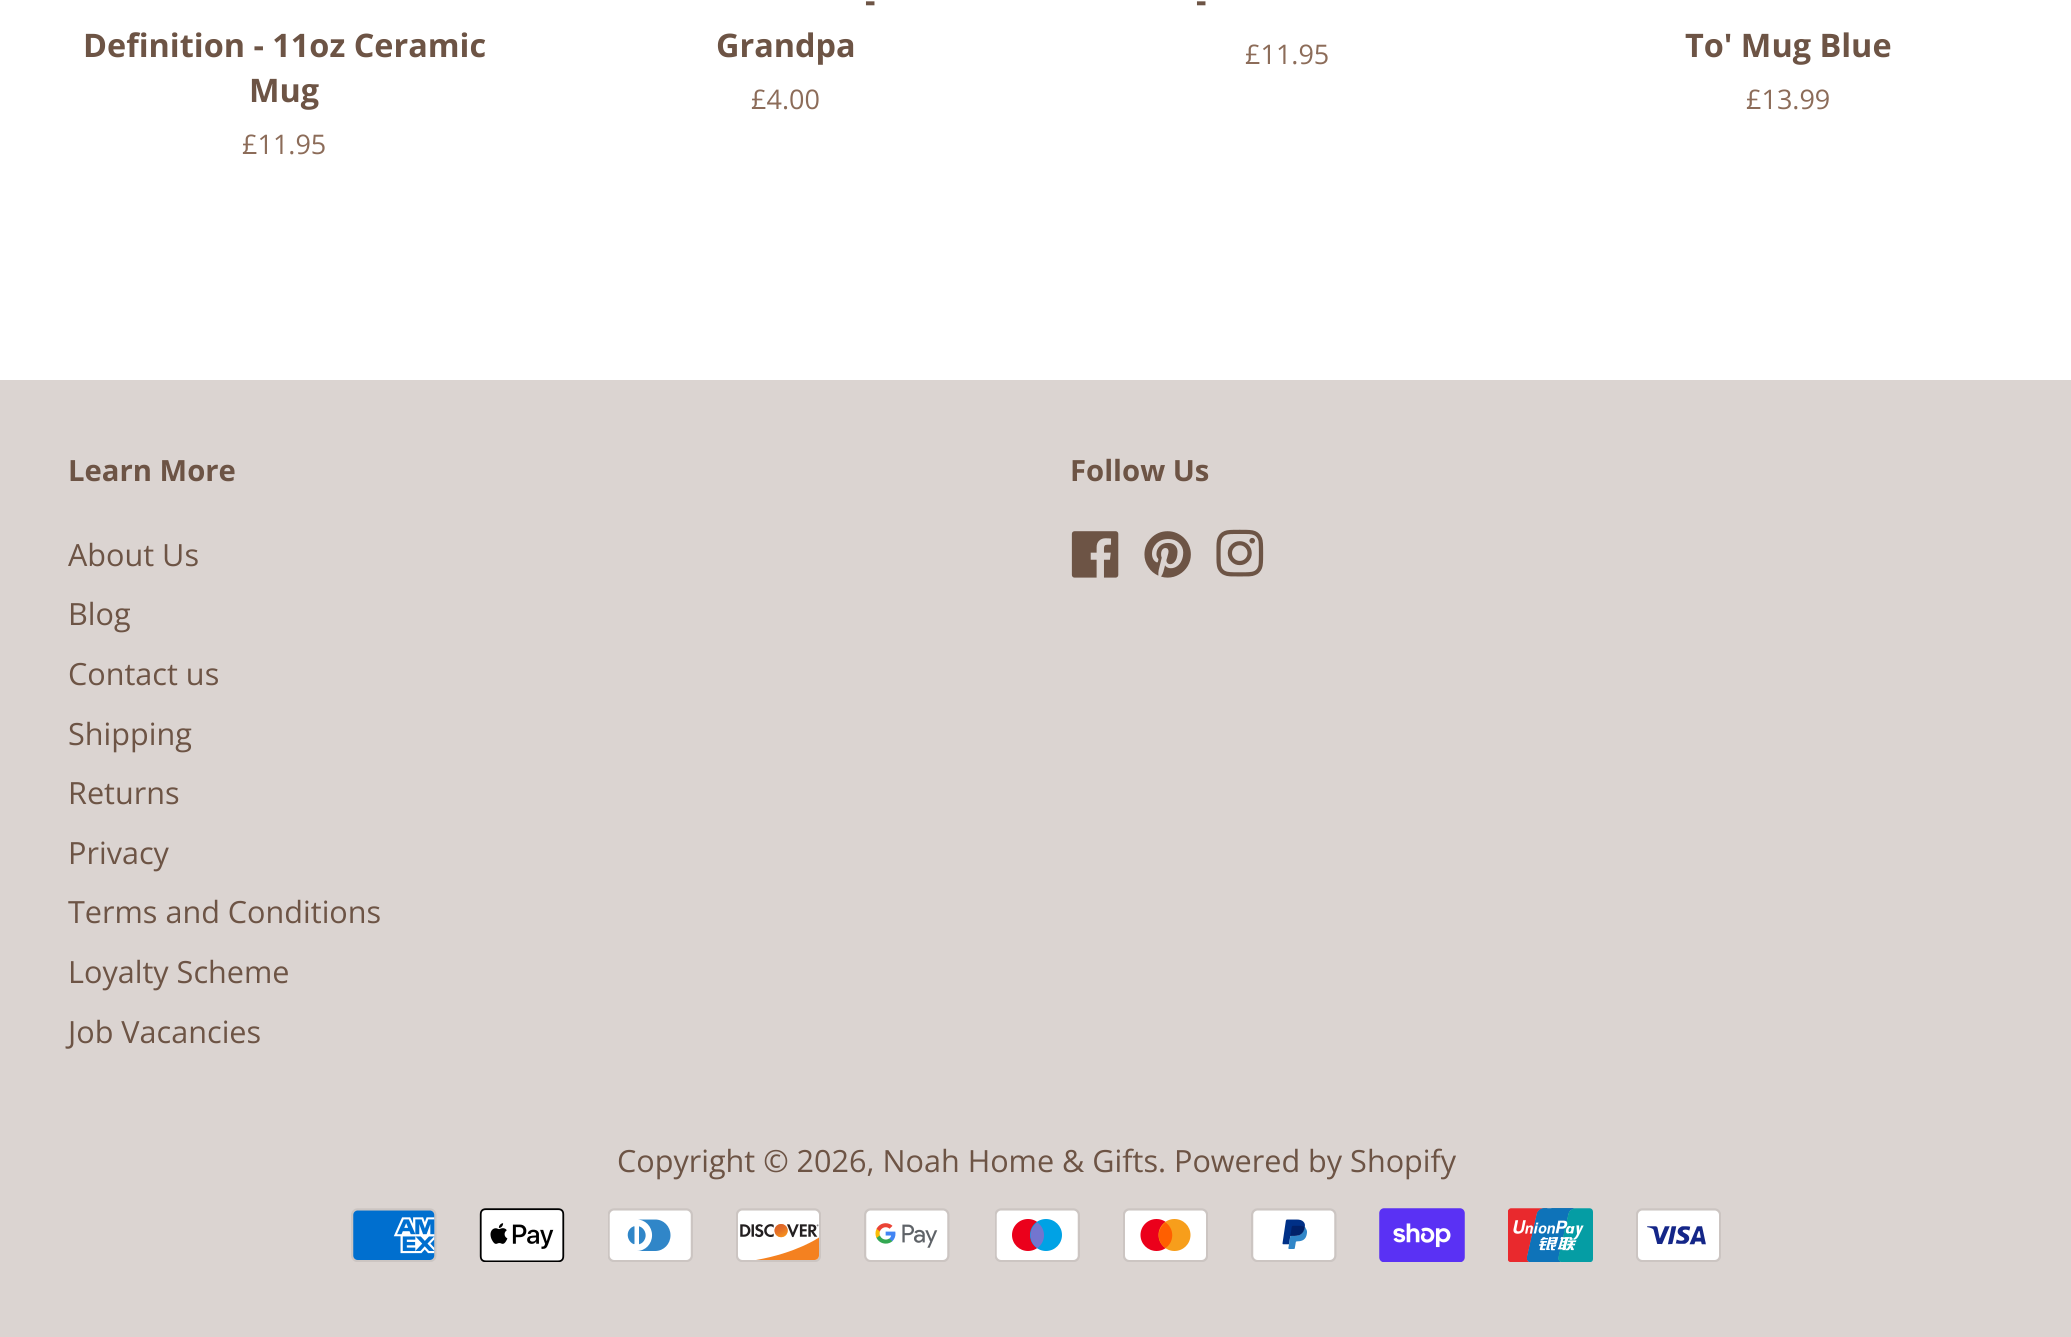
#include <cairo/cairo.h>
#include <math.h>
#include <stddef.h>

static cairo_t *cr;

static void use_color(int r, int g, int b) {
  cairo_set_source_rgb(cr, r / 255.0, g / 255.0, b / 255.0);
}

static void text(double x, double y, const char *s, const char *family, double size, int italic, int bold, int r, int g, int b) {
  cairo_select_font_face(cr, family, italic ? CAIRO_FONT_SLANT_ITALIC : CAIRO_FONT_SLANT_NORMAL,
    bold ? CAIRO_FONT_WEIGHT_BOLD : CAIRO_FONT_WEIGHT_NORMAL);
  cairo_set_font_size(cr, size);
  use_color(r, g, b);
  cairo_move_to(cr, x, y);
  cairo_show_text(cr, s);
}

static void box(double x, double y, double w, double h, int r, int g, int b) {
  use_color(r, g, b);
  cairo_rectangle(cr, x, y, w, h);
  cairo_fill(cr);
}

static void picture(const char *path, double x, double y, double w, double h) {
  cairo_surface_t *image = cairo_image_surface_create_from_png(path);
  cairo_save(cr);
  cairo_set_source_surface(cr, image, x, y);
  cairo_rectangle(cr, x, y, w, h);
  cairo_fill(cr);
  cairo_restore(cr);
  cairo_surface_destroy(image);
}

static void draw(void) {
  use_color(255, 255, 255);
  cairo_paint(cr);
  box(0, 380, 2071, 957, 219, 212, 209);
  picture("img_01.png", 1071, 531, 48, 47);
  picture("img_02.png", 1144, 531, 47, 47);
  picture("img_03.png", 1216, 529, 48, 48);
  picture("img_04.png", 351, 1208, 86, 54);
  picture("img_05.png", 479, 1208, 86, 54);
  picture("img_06.png", 608, 1208, 85, 54);
  picture("img_07.png", 736, 1208, 85, 54);
  picture("img_08.png", 864, 1208, 86, 54);
  picture("img_09.png", 995, 1208, 85, 54);
  picture("img_10.png", 1123, 1208, 85, 54);
  picture("img_11.png", 1251, 1208, 86, 54);
  picture("img_12.png", 1379, 1208, 86, 54);
  picture("img_13.png", 1508, 1208, 85, 54);
  picture("img_14.png", 1636, 1208, 85, 54);
  text(83, 57, "Definition - 11oz Ceramic", "Open Sans", 32.4, 0, 1, 109, 84, 69);
  text(249, 102, "Mug", "Open Sans", 32.4, 0, 1, 109, 84, 69);
  text(242, 154, "£11.95", "Open Sans", 27, 0, 0, 140, 108, 89);
  text(865, 12, "-", "Open Sans", 32.4, 0, 1, 109, 84, 69);
  text(716, 57, "Grandpa", "Open Sans", 32.4, 0, 1, 109, 84, 69);
  text(751, 109, "£4.00", "Open Sans", 27, 0, 0, 140, 108, 89);
  text(1196, 12, "-", "Open Sans", 32.4, 0, 1, 109, 84, 69);
  text(1245, 64, "£11.95", "Open Sans", 27, 0, 0, 140, 108, 89);
  text(1685, 57, "To' Mug Blue", "Open Sans", 32.4, 0, 1, 109, 84, 69);
  text(1746, 109, "£13.99", "Open Sans", 27, 0, 0, 140, 108, 89);
  text(68, 481, "Learn More", "Open Sans", 29.25, 0, 1, 109, 84, 69);
  text(68, 566, "About Us", "Open Sans", 30.6, 0, 0, 109, 84, 69);
  text(68, 625, "Blog", "Open Sans", 30.6, 0, 0, 109, 84, 69);
  text(68, 685, "Contact us", "Open Sans", 30.6, 0, 0, 109, 84, 69);
  text(68, 745, "Shipping", "Open Sans", 30.6, 0, 0, 109, 84, 69);
  text(68, 804, "Returns", "Open Sans", 30.6, 0, 0, 109, 84, 69);
  text(68, 864, "Privacy", "Open Sans", 30.6, 0, 0, 109, 84, 69);
  text(68, 923, "Terms and Conditions", "Open Sans", 30.6, 0, 0, 109, 84, 69);
  text(68, 983, "Loyalty Scheme", "Open Sans", 30.6, 0, 0, 109, 84, 69);
  text(68, 1043, "Job Vacancies", "Open Sans", 30.6, 0, 0, 109, 84, 69);
  text(1070, 481, "Follow Us", "Open Sans", 29.25, 0, 1, 109, 84, 69);
  text(617, 1172, "Copyright © 2026, Noah Home & Gifts. Powered by Shopify", "Open Sans", 30.6, 0, 0, 109, 84, 69);
}

int main(void) {
  cairo_surface_t *surface = cairo_image_surface_create(CAIRO_FORMAT_RGB24, 2071, 1337);
  cr = cairo_create(surface);
  cairo_font_options_t *options = cairo_font_options_create();
  cairo_font_options_set_hint_metrics(options, CAIRO_HINT_METRICS_OFF);
  cairo_font_options_set_hint_style(options, CAIRO_HINT_STYLE_NONE);
  cairo_set_font_options(cr, options);
  cairo_set_miter_limit(cr, 4);
  draw();
  cairo_surface_write_to_png(surface, "out.png");
  cairo_font_options_destroy(options);
  cairo_destroy(cr);
  cairo_surface_destroy(surface);
  return 0;
}
